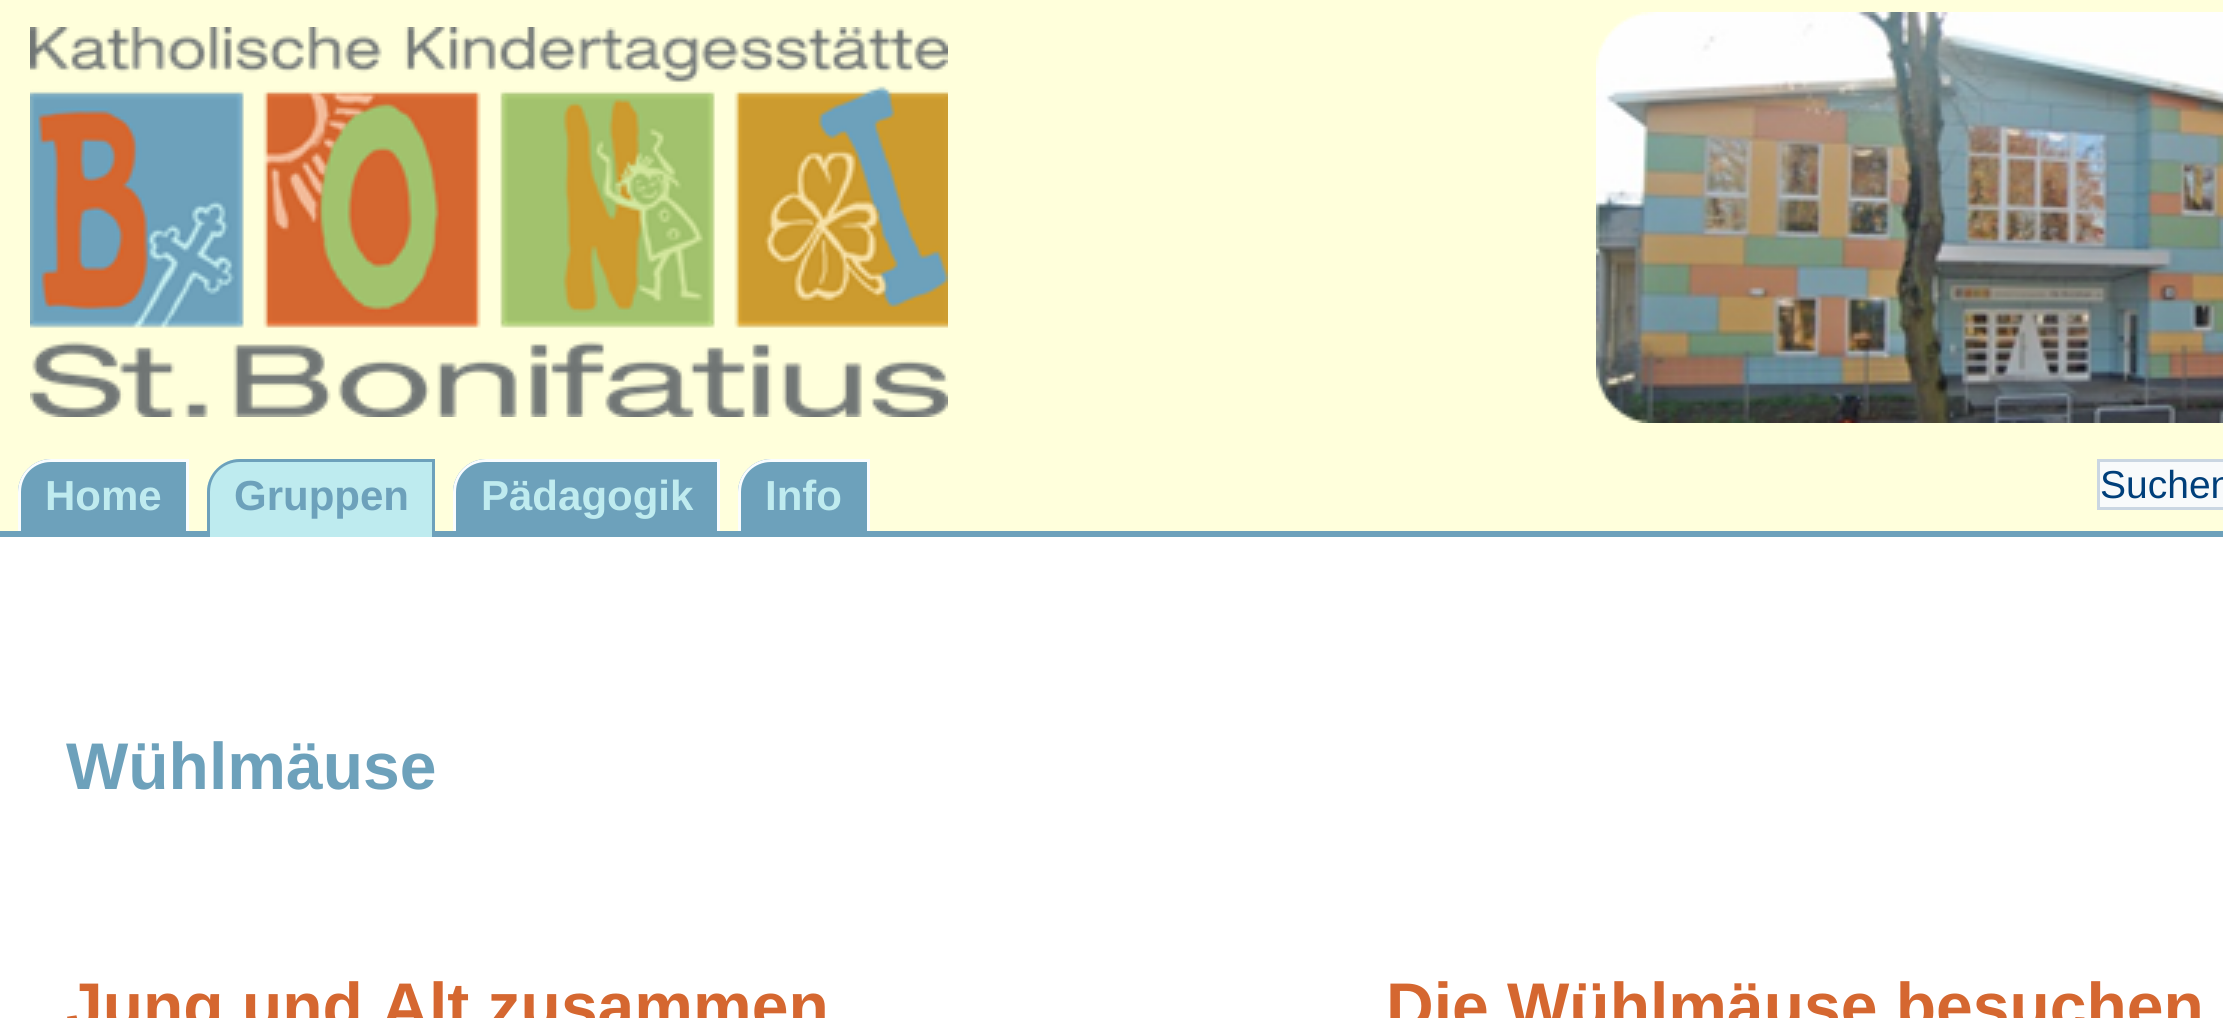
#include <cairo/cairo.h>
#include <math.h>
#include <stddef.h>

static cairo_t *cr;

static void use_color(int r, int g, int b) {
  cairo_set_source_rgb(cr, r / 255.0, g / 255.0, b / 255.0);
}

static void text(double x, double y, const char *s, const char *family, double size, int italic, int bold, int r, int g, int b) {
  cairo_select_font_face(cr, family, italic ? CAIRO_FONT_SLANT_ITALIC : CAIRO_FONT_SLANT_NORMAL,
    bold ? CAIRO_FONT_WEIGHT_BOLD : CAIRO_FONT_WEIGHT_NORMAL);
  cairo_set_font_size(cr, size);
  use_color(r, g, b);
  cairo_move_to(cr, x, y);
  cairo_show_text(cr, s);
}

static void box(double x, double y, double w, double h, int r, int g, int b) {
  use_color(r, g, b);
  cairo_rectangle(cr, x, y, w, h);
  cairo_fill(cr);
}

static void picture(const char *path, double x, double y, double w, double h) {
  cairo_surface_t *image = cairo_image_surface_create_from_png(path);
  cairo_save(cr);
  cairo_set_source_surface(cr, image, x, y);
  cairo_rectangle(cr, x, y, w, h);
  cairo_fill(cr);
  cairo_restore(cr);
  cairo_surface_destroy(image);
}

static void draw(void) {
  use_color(255, 255, 255);
  cairo_paint(cr);
  picture("img_01.png", 0, 0, 2223, 450);
  box(0, 450, 2223, 81, 255, 255, 220);
  box(0, 531, 2223, 6, 109, 161, 187);
  cairo_new_path(cr);
  cairo_move_to(cr, 51, 459);
  cairo_line_to(cr, 189, 459);
  cairo_line_to(cr, 189, 531);
  cairo_line_to(cr, 18, 531);
  cairo_line_to(cr, 18, 492);
  cairo_curve_to(cr, 18, 474, 33, 459, 51, 459);
  cairo_close_path(cr);
  cairo_fill(cr);
  use_color(250, 253, 255);
  cairo_set_fill_rule(cr, CAIRO_FILL_RULE_EVEN_ODD);
  cairo_new_path(cr);
  cairo_move_to(cr, 51, 459);
  cairo_line_to(cr, 189, 459);
  cairo_line_to(cr, 189, 531);
  cairo_line_to(cr, 18, 531);
  cairo_line_to(cr, 18, 492);
  cairo_curve_to(cr, 18, 474, 33, 459, 51, 459);
  cairo_close_path(cr);
  cairo_move_to(cr, 51, 462);
  cairo_line_to(cr, 186, 462);
  cairo_line_to(cr, 186, 531);
  cairo_line_to(cr, 21, 531);
  cairo_line_to(cr, 21, 492);
  cairo_curve_to(cr, 21, 475, 34, 462, 51, 462);
  cairo_close_path(cr);
  cairo_fill(cr);
  use_color(190, 235, 239);
  cairo_new_path(cr);
  cairo_move_to(cr, 240, 459);
  cairo_line_to(cr, 435, 459);
  cairo_line_to(cr, 435, 537);
  cairo_line_to(cr, 207, 537);
  cairo_line_to(cr, 207, 492);
  cairo_curve_to(cr, 207, 474, 222, 459, 240, 459);
  cairo_close_path(cr);
  cairo_fill(cr);
  use_color(109, 161, 187);
  cairo_new_path(cr);
  cairo_move_to(cr, 240, 459);
  cairo_line_to(cr, 435, 459);
  cairo_line_to(cr, 435, 537);
  cairo_line_to(cr, 207, 537);
  cairo_line_to(cr, 207, 492);
  cairo_curve_to(cr, 207, 474, 222, 459, 240, 459);
  cairo_close_path(cr);
  cairo_move_to(cr, 240, 462);
  cairo_line_to(cr, 432, 462);
  cairo_line_to(cr, 432, 537);
  cairo_line_to(cr, 210, 537);
  cairo_line_to(cr, 210, 492);
  cairo_curve_to(cr, 210, 475, 223, 462, 240, 462);
  cairo_close_path(cr);
  cairo_fill(cr);
  cairo_new_path(cr);
  cairo_move_to(cr, 486, 459);
  cairo_line_to(cr, 720, 459);
  cairo_line_to(cr, 720, 531);
  cairo_line_to(cr, 453, 531);
  cairo_line_to(cr, 453, 492);
  cairo_curve_to(cr, 453, 474, 468, 459, 486, 459);
  cairo_close_path(cr);
  cairo_fill(cr);
  use_color(250, 253, 255);
  cairo_new_path(cr);
  cairo_move_to(cr, 486, 459);
  cairo_line_to(cr, 720, 459);
  cairo_line_to(cr, 720, 531);
  cairo_line_to(cr, 453, 531);
  cairo_line_to(cr, 453, 492);
  cairo_curve_to(cr, 453, 474, 468, 459, 486, 459);
  cairo_close_path(cr);
  cairo_move_to(cr, 486, 462);
  cairo_line_to(cr, 717, 462);
  cairo_line_to(cr, 717, 531);
  cairo_line_to(cr, 456, 531);
  cairo_line_to(cr, 456, 492);
  cairo_curve_to(cr, 456, 475, 469, 462, 486, 462);
  cairo_close_path(cr);
  cairo_fill(cr);
  use_color(109, 161, 187);
  cairo_new_path(cr);
  cairo_move_to(cr, 771, 459);
  cairo_line_to(cr, 870, 459);
  cairo_line_to(cr, 870, 531);
  cairo_line_to(cr, 738, 531);
  cairo_line_to(cr, 738, 492);
  cairo_curve_to(cr, 738, 474, 753, 459, 771, 459);
  cairo_close_path(cr);
  cairo_fill(cr);
  use_color(250, 253, 255);
  cairo_new_path(cr);
  cairo_move_to(cr, 771, 459);
  cairo_line_to(cr, 870, 459);
  cairo_line_to(cr, 870, 531);
  cairo_line_to(cr, 738, 531);
  cairo_line_to(cr, 738, 492);
  cairo_curve_to(cr, 738, 474, 753, 459, 771, 459);
  cairo_close_path(cr);
  cairo_move_to(cr, 771, 462);
  cairo_line_to(cr, 867, 462);
  cairo_line_to(cr, 867, 531);
  cairo_line_to(cr, 741, 531);
  cairo_line_to(cr, 741, 492);
  cairo_curve_to(cr, 741, 475, 754, 462, 771, 462);
  cairo_close_path(cr);
  cairo_fill(cr);
  use_color(248, 250, 251);
  cairo_rectangle(cr, 2098.5, 460.5, 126, 48);
  cairo_fill_preserve(cr);
  use_color(202, 214, 226);
  cairo_set_line_width(cr, 3);
  cairo_stroke(cr);
  text(45, 510, "Home", "Liberation Sans", 42, 0, 1, 191, 235, 239);
  text(234, 510, "Gruppen", "Liberation Sans", 42, 0, 1, 109, 161, 187);
  text(481, 510, "Pädagogik", "Liberation Sans", 42, 0, 1, 191, 235, 239);
  text(765, 510, "Info", "Liberation Sans", 42, 0, 1, 191, 235, 239);
  text(2100, 498, "Suchen", "Liberation Sans", 39, 0, 0, 0, 63, 122);
  text(66, 789, "Wühlmäuse", "Liberation Sans", 66, 0, 1, 109, 161, 187);
  text(66, 1029, "Jung und Alt zusammen", "Liberation Sans", 66, 0, 1, 213, 103, 48);
  text(1386, 1029, "Die Wühlmäuse besuchen", "Liberation Sans", 66, 0, 1, 213, 103, 48);
}

int main(void) {
  cairo_surface_t *surface = cairo_image_surface_create(CAIRO_FORMAT_RGB24, 2223, 1018);
  cr = cairo_create(surface);
  cairo_font_options_t *options = cairo_font_options_create();
  cairo_font_options_set_hint_metrics(options, CAIRO_HINT_METRICS_OFF);
  cairo_font_options_set_hint_style(options, CAIRO_HINT_STYLE_NONE);
  cairo_set_font_options(cr, options);
  cairo_set_miter_limit(cr, 4);
  draw();
  cairo_surface_write_to_png(surface, "out.png");
  cairo_font_options_destroy(options);
  cairo_destroy(cr);
  cairo_surface_destroy(surface);
  return 0;
}
